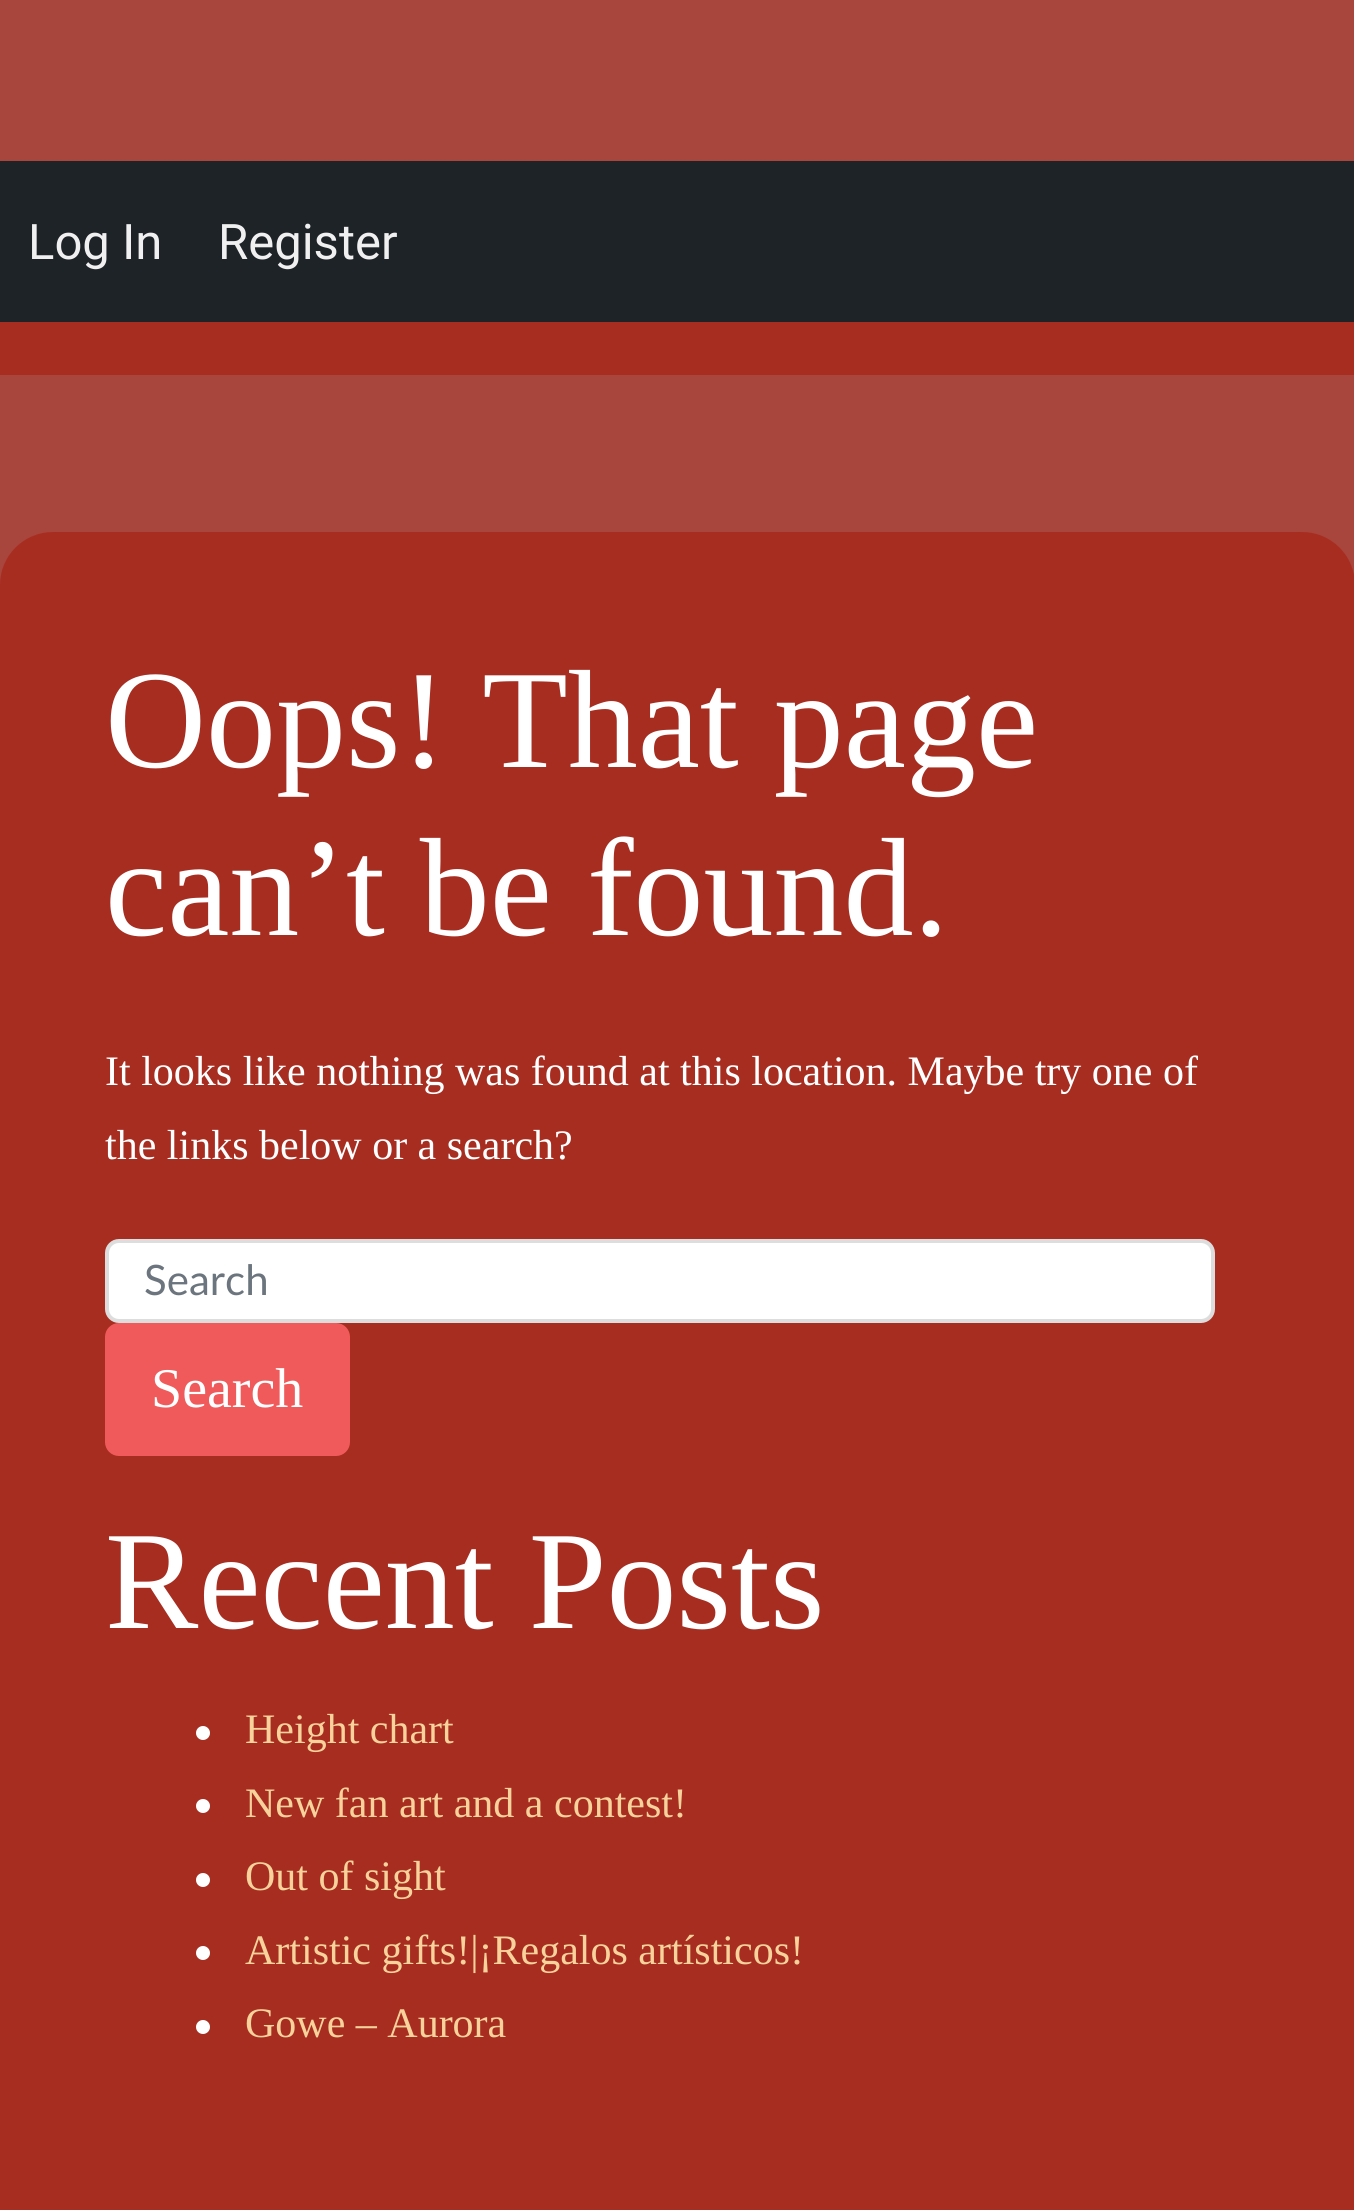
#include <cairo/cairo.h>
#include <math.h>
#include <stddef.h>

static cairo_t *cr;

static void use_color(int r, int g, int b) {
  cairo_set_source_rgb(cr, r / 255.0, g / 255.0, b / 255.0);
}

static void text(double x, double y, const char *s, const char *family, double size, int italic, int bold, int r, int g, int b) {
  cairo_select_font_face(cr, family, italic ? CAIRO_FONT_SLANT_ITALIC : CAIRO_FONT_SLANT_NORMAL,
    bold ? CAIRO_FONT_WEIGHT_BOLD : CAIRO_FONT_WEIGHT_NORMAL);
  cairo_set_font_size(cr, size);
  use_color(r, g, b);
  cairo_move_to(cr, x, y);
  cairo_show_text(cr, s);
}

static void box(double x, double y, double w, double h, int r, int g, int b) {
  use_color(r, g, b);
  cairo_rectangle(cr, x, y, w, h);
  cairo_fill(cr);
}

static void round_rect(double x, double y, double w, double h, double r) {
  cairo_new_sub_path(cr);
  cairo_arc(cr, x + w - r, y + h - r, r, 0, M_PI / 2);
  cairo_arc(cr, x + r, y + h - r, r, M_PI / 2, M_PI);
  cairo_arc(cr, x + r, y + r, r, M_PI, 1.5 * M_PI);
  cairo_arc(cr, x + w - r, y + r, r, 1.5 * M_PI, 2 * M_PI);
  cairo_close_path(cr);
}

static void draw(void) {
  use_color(168, 69, 60);
  cairo_paint(cr);
  box(0, 161, 1354, 161, 29, 35, 39);
  box(0, 322, 1354, 53, 168, 45, 33);
  round_rect(0, 532, 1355, 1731, 53);
  cairo_fill(cr);
  use_color(255, 255, 255);
  round_rect(107, 1241, 1106, 80, 12);
  cairo_fill_preserve(cr);
  use_color(221, 221, 221);
  cairo_set_line_width(cr, 4);
  cairo_stroke(cr);
  use_color(241, 90, 90);
  round_rect(107, 1325, 241, 129, 12);
  cairo_fill_preserve(cr);
  cairo_stroke(cr);
  use_color(255, 255, 255);
  cairo_arc(cr, 203, 1733, 7, 0, 2 * M_PI);
  cairo_fill(cr);
  cairo_arc(cr, 203, 1806, 7, 0, 2 * M_PI);
  cairo_fill(cr);
  cairo_arc(cr, 203, 1880, 7, 0, 2 * M_PI);
  cairo_fill(cr);
  cairo_arc(cr, 203, 1953, 7, 0, 2 * M_PI);
  cairo_fill(cr);
  cairo_arc(cr, 203, 2027, 7, 0, 2 * M_PI);
  cairo_fill(cr);
  text(28, 259, "Log In", "Roboto", 49, 0, 0, 240, 240, 241);
  text(218, 259, "Register", "Roboto", 49, 0, 0, 240, 240, 241);
  text(105, 767, "Oops! That page", "Liberation Serif", 140, 0, 0, 255, 255, 255);
  text(105, 935, "can’t be found.", "Liberation Serif", 140, 0, 0, 255, 255, 255);
  text(105, 1085, "It looks like nothing was found at this location. Maybe try one of", "Liberation Serif", 42, 0, 0, 255, 255, 255);
  text(105, 1159, "the links below or a search?", "Liberation Serif", 42, 0, 0, 255, 255, 255);
  text(144, 1295, "Search", "Lato", 42, 0, 0, 108, 117, 125);
  text(151, 1407, "Search", "Liberation Serif", 56, 0, 0, 255, 255, 255);
  text(105, 1628, "Recent Posts", "Liberation Serif", 140, 0, 0, 255, 255, 255);
  text(245, 1743, "Height chart", "Liberation Serif", 42, 0, 0, 247, 210, 155);
  text(245, 1817, "New fan art and a contest!", "Liberation Serif", 42, 0, 0, 247, 210, 155);
  text(245, 1890, "Out of sight", "Liberation Serif", 42, 0, 0, 247, 210, 155);
  text(245, 1964, "Artistic gifts!|¡Regalos artísticos!", "Liberation Serif", 42, 0, 0, 247, 210, 155);
  text(245, 2037, "Gowe – Aurora", "Liberation Serif", 42, 0, 0, 247, 210, 155);
}

int main(void) {
  cairo_surface_t *surface = cairo_image_surface_create(CAIRO_FORMAT_RGB24, 1354, 2210);
  cr = cairo_create(surface);
  cairo_font_options_t *options = cairo_font_options_create();
  cairo_font_options_set_hint_metrics(options, CAIRO_HINT_METRICS_OFF);
  cairo_font_options_set_hint_style(options, CAIRO_HINT_STYLE_NONE);
  cairo_set_font_options(cr, options);
  cairo_set_miter_limit(cr, 4);
  draw();
  cairo_surface_write_to_png(surface, "out.png");
  cairo_font_options_destroy(options);
  cairo_destroy(cr);
  cairo_surface_destroy(surface);
  return 0;
}
